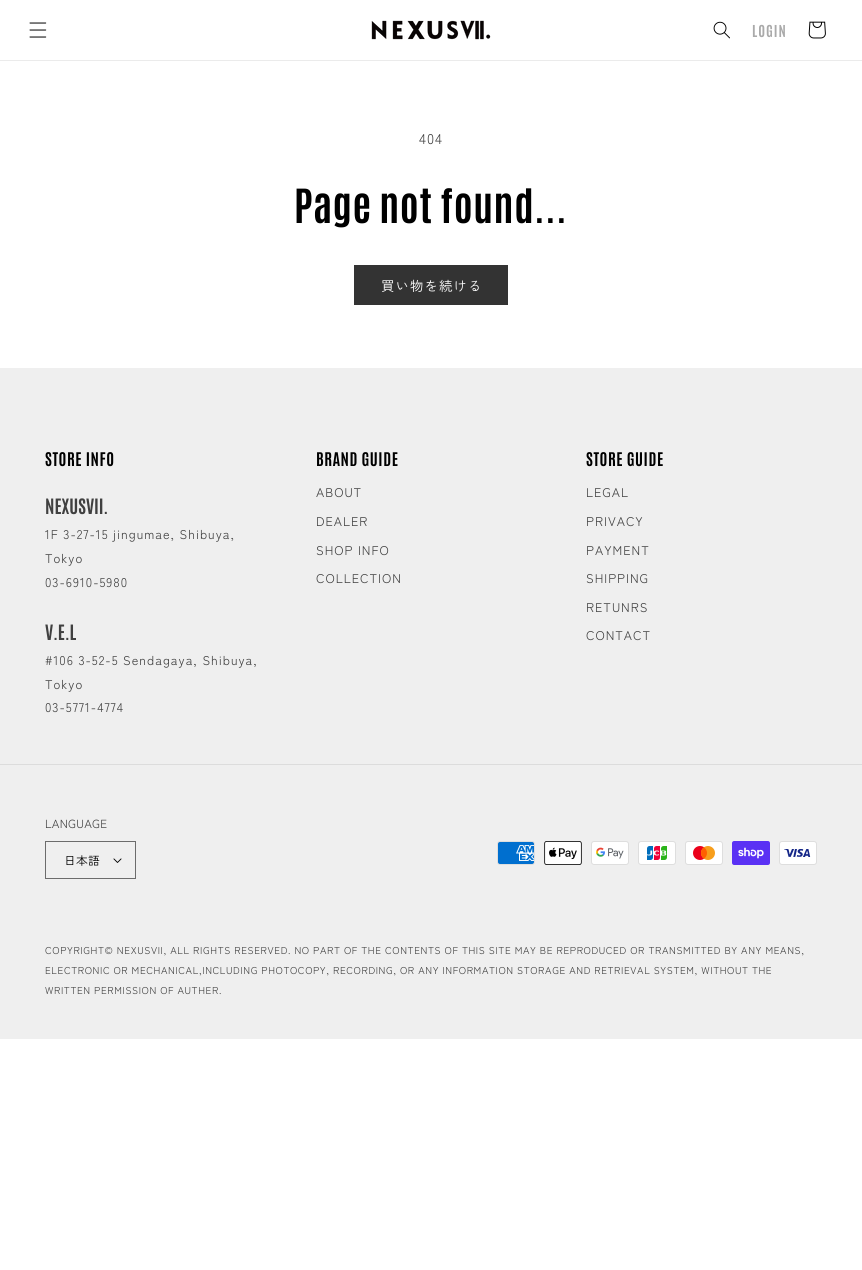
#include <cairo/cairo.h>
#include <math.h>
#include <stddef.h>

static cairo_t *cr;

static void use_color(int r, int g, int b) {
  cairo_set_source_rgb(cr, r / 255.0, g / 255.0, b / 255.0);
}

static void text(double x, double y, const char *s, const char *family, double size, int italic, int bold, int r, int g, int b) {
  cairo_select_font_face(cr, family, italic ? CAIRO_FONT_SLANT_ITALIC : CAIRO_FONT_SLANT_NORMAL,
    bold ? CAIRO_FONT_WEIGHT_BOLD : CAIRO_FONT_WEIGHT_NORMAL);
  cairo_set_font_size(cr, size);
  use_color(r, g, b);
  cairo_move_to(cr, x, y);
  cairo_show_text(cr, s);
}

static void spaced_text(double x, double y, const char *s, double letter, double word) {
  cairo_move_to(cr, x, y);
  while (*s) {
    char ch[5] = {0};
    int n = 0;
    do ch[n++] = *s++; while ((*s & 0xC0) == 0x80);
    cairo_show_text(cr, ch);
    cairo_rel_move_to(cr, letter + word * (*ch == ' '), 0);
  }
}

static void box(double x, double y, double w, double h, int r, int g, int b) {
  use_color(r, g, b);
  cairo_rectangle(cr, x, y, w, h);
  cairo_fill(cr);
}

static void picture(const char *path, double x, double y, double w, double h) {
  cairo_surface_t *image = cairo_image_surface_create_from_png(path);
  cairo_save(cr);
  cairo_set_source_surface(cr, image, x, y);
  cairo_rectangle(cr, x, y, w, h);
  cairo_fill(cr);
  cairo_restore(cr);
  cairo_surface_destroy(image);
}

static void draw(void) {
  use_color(255, 255, 255);
  cairo_paint(cr);
  box(0, 60, 862, 1, 235, 235, 235);
  picture("img_01.png", 29, 22, 18, 16);
  picture("img_02.png", 371, 20, 120, 20);
  picture("img_03.png", 713, 21, 17, 18);
  picture("img_04.png", 808, 21, 18, 18);
  box(354, 265, 154, 40, 51, 51, 51);
  box(0, 368, 862, 671, 239, 239, 239);
  box(0, 764, 862, 1, 220, 220, 220);
  picture("img_05.png", 113, 858, 9, 5);
  cairo_rectangle(cr, 45.5, 841.5, 90, 37);
  use_color(108, 108, 108);
  cairo_set_line_width(cr, 1);
  cairo_stroke(cr);
  picture("img_06.png", 497, 841, 38, 24);
  picture("img_07.png", 544, 841, 38, 24);
  picture("img_08.png", 591, 841, 38, 24);
  picture("img_09.png", 638, 841, 38, 24);
  picture("img_10.png", 685, 841, 38, 24);
  picture("img_11.png", 732, 841, 38, 24);
  picture("img_12.png", 779, 841, 38, 24);
  cairo_select_font_face(cr, "Antonio", CAIRO_FONT_SLANT_NORMAL, CAIRO_FONT_WEIGHT_BOLD);
  cairo_set_font_size(cr, 14);
  use_color(170, 170, 170);
  spaced_text(752, 37, "LOGIN", 1, 0);
  cairo_select_font_face(cr, "Zen Kaku Gothic New", CAIRO_FONT_SLANT_NORMAL, CAIRO_FONT_WEIGHT_NORMAL);
  use_color(64, 64, 64);
  spaced_text(419, 144, "404", 1, 0);
  cairo_select_font_face(cr, "Antonio", CAIRO_FONT_SLANT_NORMAL, CAIRO_FONT_WEIGHT_BOLD);
  cairo_set_font_size(cr, 40);
  use_color(0, 0, 0);
  spaced_text(294, 223, "Page not found...", 0.6, 0);
  cairo_select_font_face(cr, "Zen Kaku Gothic New", CAIRO_FONT_SLANT_NORMAL, CAIRO_FONT_WEIGHT_NORMAL);
  cairo_set_font_size(cr, 13.5);
  use_color(255, 255, 255);
  spaced_text(381, 291, "買い物を続ける", 1, 0);
  cairo_select_font_face(cr, "Antonio", CAIRO_FONT_SLANT_NORMAL, CAIRO_FONT_WEIGHT_BOLD);
  cairo_set_font_size(cr, 16);
  use_color(0, 0, 0);
  spaced_text(45, 466, "STORE INFO", 0.6, 0);
  text(45, 514, "NEXUSVII.", "Antonio", 18, 0, 1, 64, 64, 64);
  cairo_select_font_face(cr, "Zen Kaku Gothic New", CAIRO_FONT_SLANT_NORMAL, CAIRO_FONT_WEIGHT_NORMAL);
  cairo_set_font_size(cr, 12.6);
  spaced_text(45, 539, "1F 3-27-15 jingumae, Shibuya,", 1, 0);
  spaced_text(45, 563, "Tokyo", 1, 0);
  spaced_text(45, 587, "03-6910-5980", 1, 0);
  text(45, 640, "V.E.L", "Antonio", 18, 0, 1, 64, 64, 64);
  cairo_select_font_face(cr, "Zen Kaku Gothic New", CAIRO_FONT_SLANT_NORMAL, CAIRO_FONT_WEIGHT_NORMAL);
  cairo_set_font_size(cr, 12.6);
  spaced_text(45, 665, "#106 3-52-5 Sendagaya, Shibuya,", 1, 0);
  spaced_text(45, 689, "Tokyo", 1, 0);
  spaced_text(45, 712, "03-5771-4774", 1, 0);
  cairo_select_font_face(cr, "Antonio", CAIRO_FONT_SLANT_NORMAL, CAIRO_FONT_WEIGHT_BOLD);
  cairo_set_font_size(cr, 16);
  use_color(0, 0, 0);
  spaced_text(316, 466, "BRAND GUIDE", 0.6, 0);
  cairo_select_font_face(cr, "Zen Kaku Gothic New", CAIRO_FONT_SLANT_NORMAL, CAIRO_FONT_WEIGHT_NORMAL);
  cairo_set_font_size(cr, 12.6);
  use_color(64, 64, 64);
  spaced_text(316, 497, "ABOUT", 1, 0);
  spaced_text(316, 526, "DEALER", 1, 0);
  spaced_text(316, 555, "SHOP INFO", 1, 0);
  spaced_text(316, 583, "COLLECTION", 1, 0);
  cairo_select_font_face(cr, "Antonio", CAIRO_FONT_SLANT_NORMAL, CAIRO_FONT_WEIGHT_BOLD);
  cairo_set_font_size(cr, 16);
  use_color(0, 0, 0);
  spaced_text(586, 466, "STORE GUIDE", 0.6, 0);
  cairo_select_font_face(cr, "Zen Kaku Gothic New", CAIRO_FONT_SLANT_NORMAL, CAIRO_FONT_WEIGHT_NORMAL);
  cairo_set_font_size(cr, 12.6);
  use_color(64, 64, 64);
  spaced_text(586, 497, "LEGAL", 1, 0);
  spaced_text(586, 526, "PRIVACY", 1, 0);
  spaced_text(586, 555, "PAYMENT", 1, 0);
  spaced_text(586, 583, "SHIPPING", 1, 0);
  spaced_text(586, 612, "RETUNRS", 1, 0);
  spaced_text(586, 640, "CONTACT", 1, 0);
  cairo_set_font_size(cr, 11.75);
  spaced_text(45, 828, "LANGUAGE", 0.25, 0);
  use_color(0, 0, 0);
  spaced_text(64, 865, "日本語", 0.25, 0);
  cairo_set_font_size(cr, 9.9);
  use_color(64, 64, 64);
  spaced_text(45, 954, "COPYRIGHT© NEXUSVII, ALL RIGHTS RESERVED. NO PART OF THE CONTENTS OF THIS SITE MAY BE REPRODUCED OR TRANSMITTED BY ANY MEANS,", 0.63, 0);
  spaced_text(45, 974, "ELECTRONIC OR MECHANICAL,INCLUDING PHOTOCOPY, RECORDING, OR ANY INFORMATION STORAGE AND RETRIEVAL SYSTEM, WITHOUT THE", 0.63, -0.1);
  spaced_text(45, 994, "WRITTEN PERMISSION OF AUTHER.", 0.63, -0.1);
}

int main(void) {
  cairo_surface_t *surface = cairo_image_surface_create(CAIRO_FORMAT_RGB24, 862, 1270);
  cr = cairo_create(surface);
  cairo_font_options_t *options = cairo_font_options_create();
  cairo_font_options_set_hint_metrics(options, CAIRO_HINT_METRICS_OFF);
  cairo_font_options_set_hint_style(options, CAIRO_HINT_STYLE_NONE);
  cairo_set_font_options(cr, options);
  cairo_set_miter_limit(cr, 4);
  draw();
  cairo_surface_write_to_png(surface, "out.png");
  cairo_font_options_destroy(options);
  cairo_destroy(cr);
  cairo_surface_destroy(surface);
  return 0;
}
